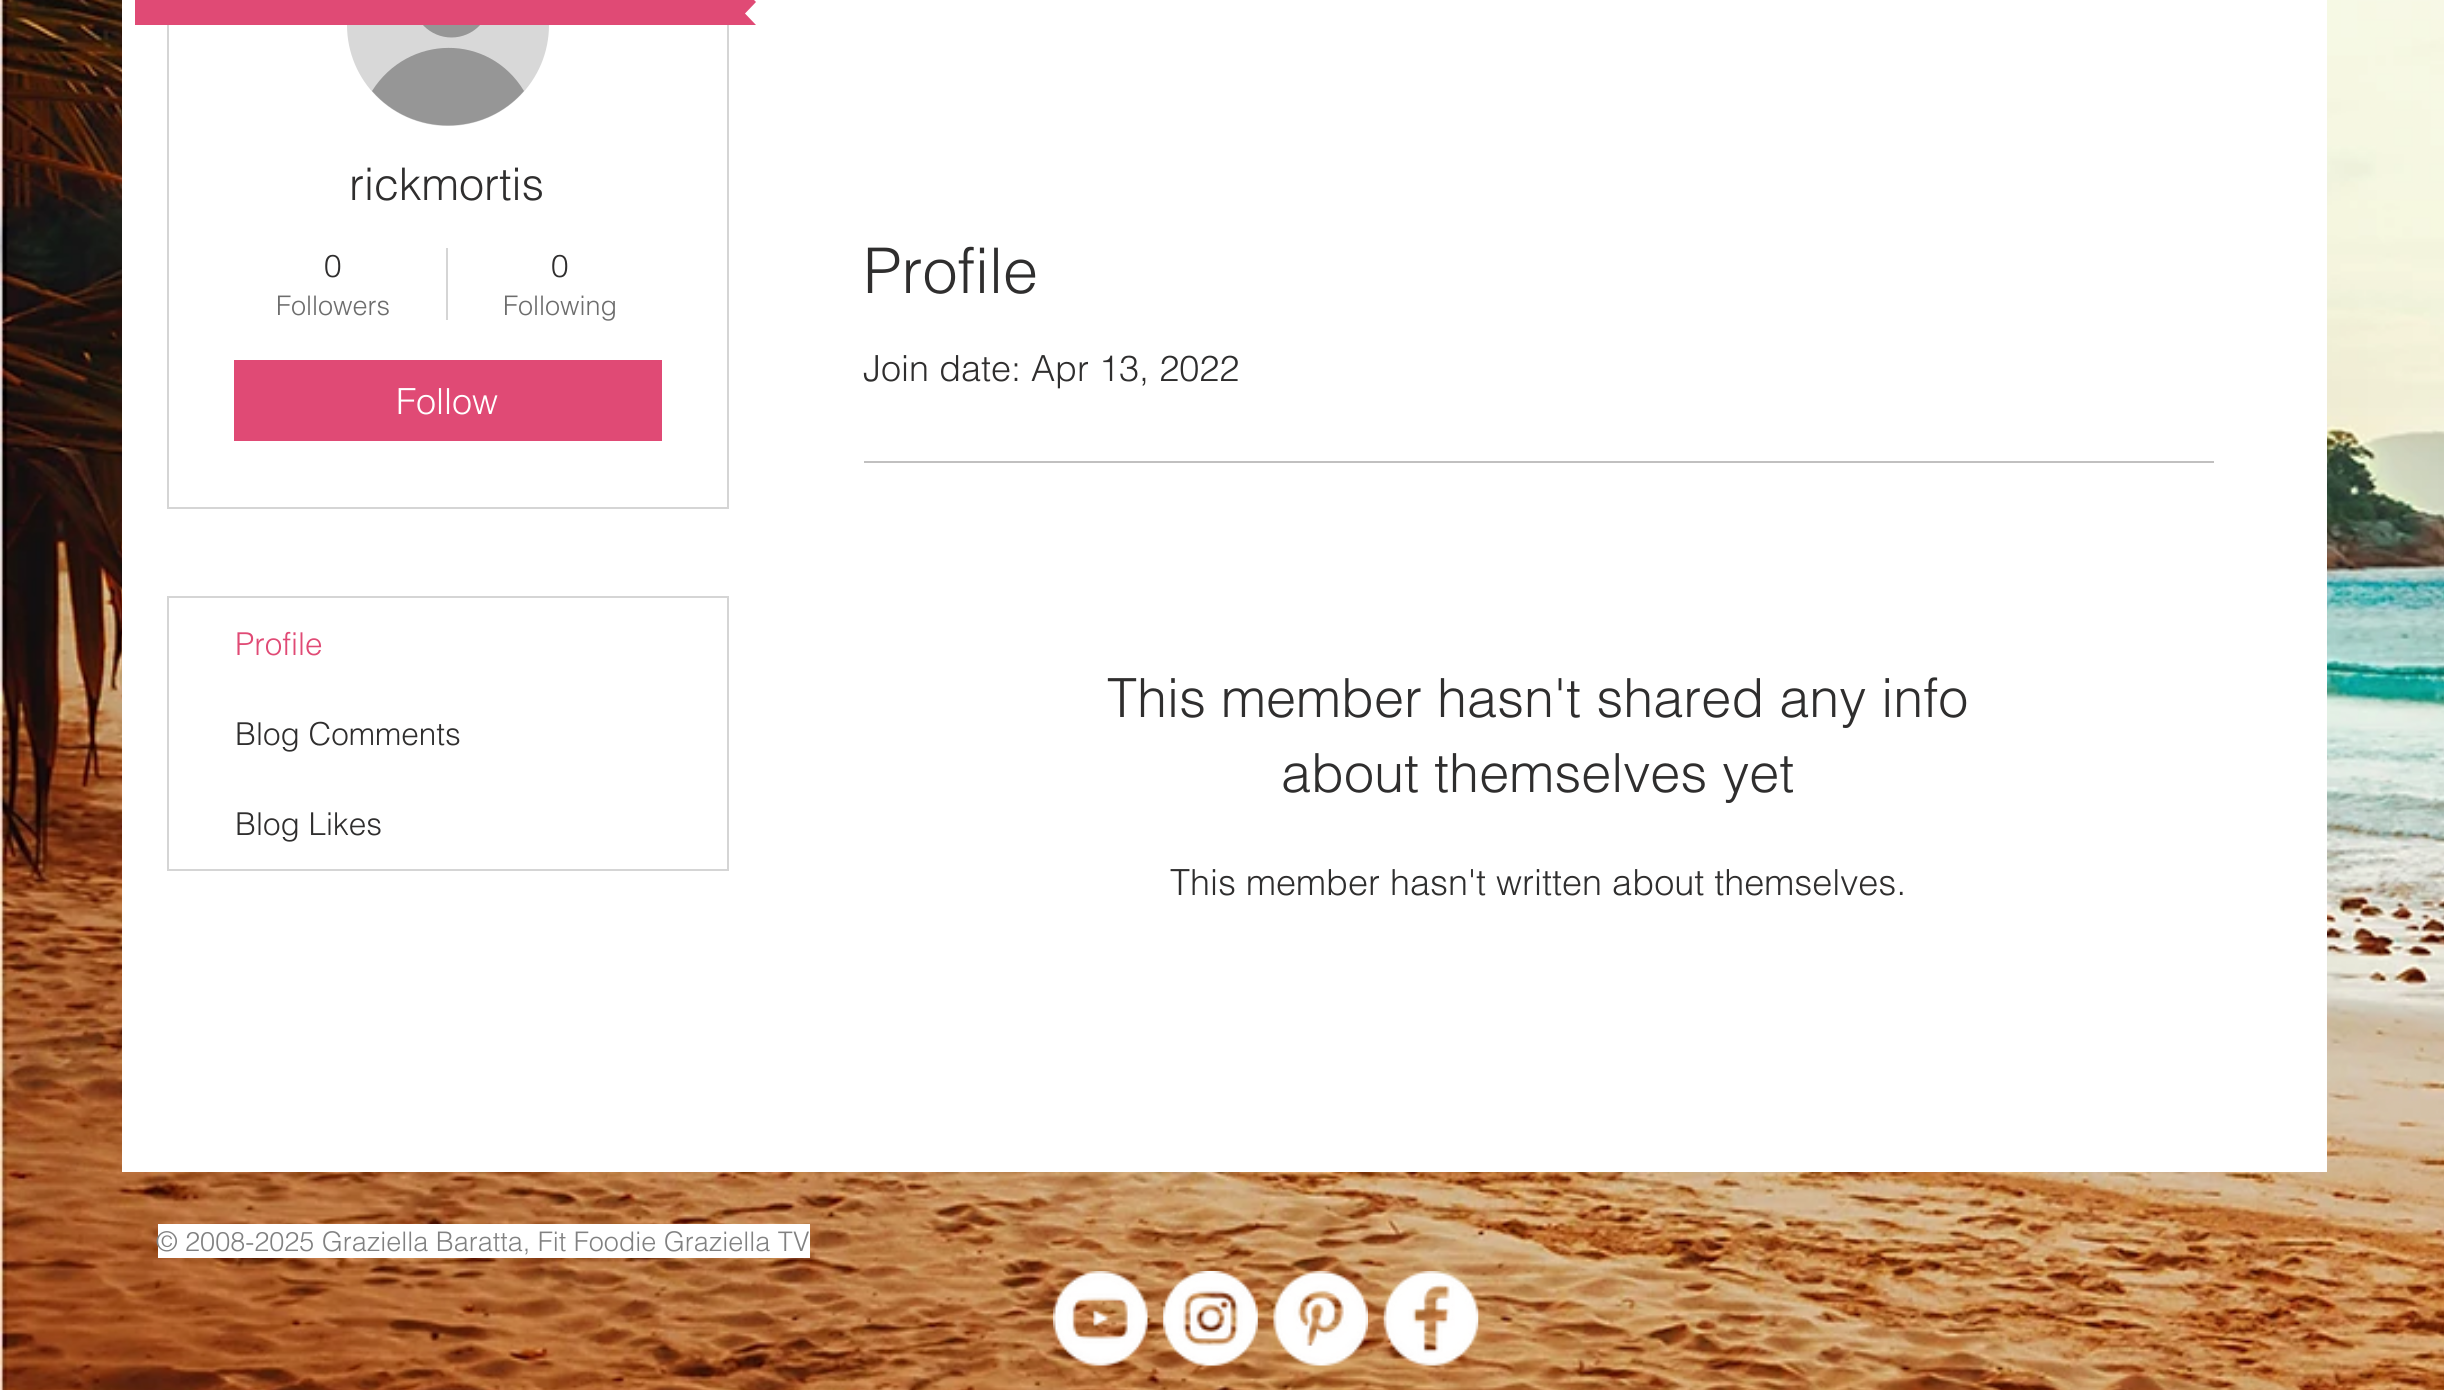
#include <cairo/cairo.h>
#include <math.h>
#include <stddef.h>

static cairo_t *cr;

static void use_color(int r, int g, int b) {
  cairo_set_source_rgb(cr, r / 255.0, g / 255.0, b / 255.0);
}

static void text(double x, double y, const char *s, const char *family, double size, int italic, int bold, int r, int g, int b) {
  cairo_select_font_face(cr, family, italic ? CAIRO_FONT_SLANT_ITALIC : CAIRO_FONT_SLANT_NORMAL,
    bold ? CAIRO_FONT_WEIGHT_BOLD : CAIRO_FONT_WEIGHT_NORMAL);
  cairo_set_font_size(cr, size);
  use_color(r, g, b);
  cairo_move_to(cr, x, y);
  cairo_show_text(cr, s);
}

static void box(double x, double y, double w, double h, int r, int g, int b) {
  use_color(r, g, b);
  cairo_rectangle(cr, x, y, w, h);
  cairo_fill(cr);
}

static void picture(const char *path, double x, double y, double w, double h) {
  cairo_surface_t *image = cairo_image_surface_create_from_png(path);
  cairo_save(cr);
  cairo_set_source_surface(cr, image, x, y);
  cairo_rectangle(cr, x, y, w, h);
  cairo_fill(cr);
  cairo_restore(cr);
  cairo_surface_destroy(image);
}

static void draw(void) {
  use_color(255, 255, 255);
  cairo_paint(cr);
  picture("img_01.png", 0, 0, 2444, 1390);
  box(122, 25, 2205, 1147, 255, 255, 255);
  cairo_rectangle(cr, 168, -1, 560, 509);
  use_color(213, 213, 213);
  cairo_stroke(cr);
  use_color(216, 216, 216);
  cairo_arc(cr, 448, 25, 101, 0, 2 * M_PI);
  cairo_fill(cr);
  use_color(150, 150, 150);
  cairo_arc(cr, 451.5, -1.5, 39, 0, 2 * M_PI);
  cairo_fill(cr);
  box(122, 0, 2205, 25, 255, 255, 255);
  box(135, 0, 610, 25, 224, 74, 117);
  cairo_new_path(cr);
  cairo_move_to(cr, 745, 13.5);
  cairo_line_to(cr, 745, -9);
  cairo_line_to(cr, 756, 2);
  cairo_close_path(cr);
  cairo_fill(cr);
  cairo_save(cr);
  cairo_rectangle(cr, 745, 0, 11, 25);
  cairo_clip(cr);
  cairo_new_path(cr);
  cairo_move_to(cr, 745, 36);
  cairo_line_to(cr, 745, 13.5);
  cairo_line_to(cr, 756, 25);
  cairo_close_path(cr);
  cairo_fill(cr);
  cairo_restore(cr);
  use_color(150, 150, 150);
  cairo_new_path(cr);
  cairo_move_to(cr, 524, 91);
  cairo_curve_to(cr, 484, 137, 412, 137, 372, 91);
  cairo_curve_to(cr, 408, 34, 489, 33, 524, 91);
  cairo_close_path(cr);
  cairo_fill(cr);
  box(446, 248, 2, 72, 213, 213, 213);
  box(234, 360, 428, 81, 224, 74, 117);
  cairo_rectangle(cr, 168, 597, 560, 273);
  use_color(213, 213, 213);
  cairo_stroke(cr);
  box(864, 461, 1350, 2, 193, 192, 192);
  box(158, 1224, 652, 34, 255, 255, 255);
  picture("img_02.png", 1053, 1271, 95, 95);
  picture("img_03.png", 1163, 1271, 95, 95);
  picture("img_04.png", 1273, 1271, 95, 95);
  picture("img_05.png", 1383, 1271, 96, 95);
  text(349, 200, "rickmortis", "helvetica Light", 45, 0, 0, 47, 46, 46);
  text(324, 277, "0", "helvetica Light", 31.5, 0, 0, 47, 46, 46);
  text(276, 315, "Followers", "helvetica Light", 27, 0, 0, 109, 109, 109);
  text(551, 277, "0", "helvetica Light", 31.5, 0, 0, 47, 46, 46);
  text(503, 315, "Following", "helvetica Light", 27, 0, 0, 109, 109, 109);
  text(396, 414, "Follow", "helvetica Light", 36, 0, 0, 255, 255, 255);
  text(235, 655, "Profile", "helvetica Light", 31.5, 0, 0, 224, 74, 117);
  text(235, 745, "Blog Comments", "helvetica Light", 31.5, 0, 0, 47, 46, 46);
  text(235, 835, "Blog Likes", "helvetica Light", 31.5, 0, 0, 47, 46, 46);
  text(863, 293, "Profile", "helvetica Light", 63, 0, 0, 47, 46, 46);
  text(863, 381, "Join date: Apr 13, 2022", "helvetica Light", 36, 0, 0, 47, 46, 46);
  text(1107, 717, "This member hasn't shared any info", "helvetica Light", 54, 0, 0, 47, 46, 46);
  text(1281, 792, "about themselves yet", "helvetica Light", 54, 0, 0, 47, 46, 46);
  text(1170, 895, "This member hasn't written about themselves.", "helvetica Light", 36, 0, 0, 47, 46, 46);
  text(156, 1251, "© 2008-2025 Graziella Baratta, Fit Foodie Graziella TV", "helvetica Light", 27, 0, 0, 129, 129, 129);
}

int main(void) {
  cairo_surface_t *surface = cairo_image_surface_create(CAIRO_FORMAT_RGB24, 2444, 1390);
  cr = cairo_create(surface);
  cairo_font_options_t *options = cairo_font_options_create();
  cairo_font_options_set_hint_metrics(options, CAIRO_HINT_METRICS_OFF);
  cairo_font_options_set_hint_style(options, CAIRO_HINT_STYLE_NONE);
  cairo_set_font_options(cr, options);
  cairo_set_miter_limit(cr, 4);
  draw();
  cairo_surface_write_to_png(surface, "out.png");
  cairo_font_options_destroy(options);
  cairo_destroy(cr);
  cairo_surface_destroy(surface);
  return 0;
}
